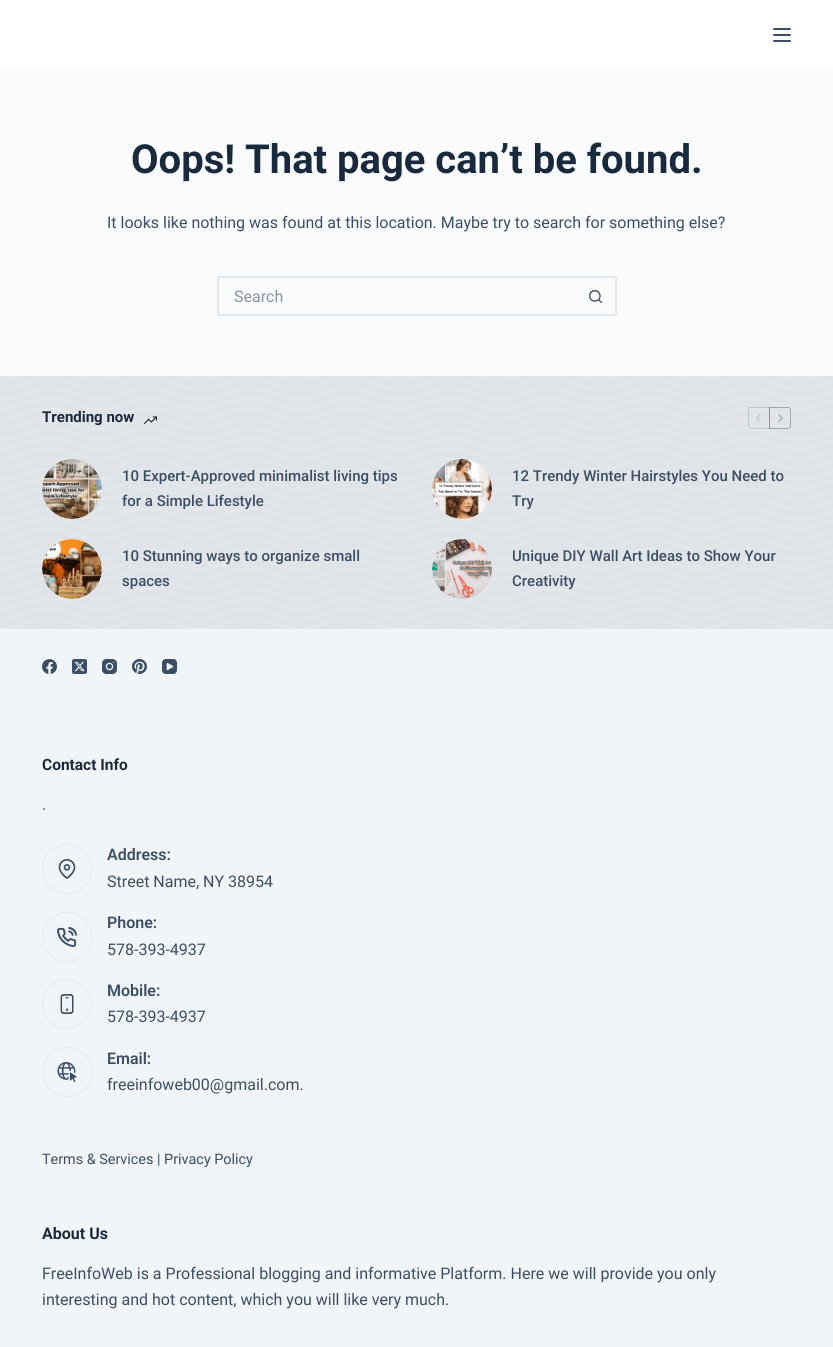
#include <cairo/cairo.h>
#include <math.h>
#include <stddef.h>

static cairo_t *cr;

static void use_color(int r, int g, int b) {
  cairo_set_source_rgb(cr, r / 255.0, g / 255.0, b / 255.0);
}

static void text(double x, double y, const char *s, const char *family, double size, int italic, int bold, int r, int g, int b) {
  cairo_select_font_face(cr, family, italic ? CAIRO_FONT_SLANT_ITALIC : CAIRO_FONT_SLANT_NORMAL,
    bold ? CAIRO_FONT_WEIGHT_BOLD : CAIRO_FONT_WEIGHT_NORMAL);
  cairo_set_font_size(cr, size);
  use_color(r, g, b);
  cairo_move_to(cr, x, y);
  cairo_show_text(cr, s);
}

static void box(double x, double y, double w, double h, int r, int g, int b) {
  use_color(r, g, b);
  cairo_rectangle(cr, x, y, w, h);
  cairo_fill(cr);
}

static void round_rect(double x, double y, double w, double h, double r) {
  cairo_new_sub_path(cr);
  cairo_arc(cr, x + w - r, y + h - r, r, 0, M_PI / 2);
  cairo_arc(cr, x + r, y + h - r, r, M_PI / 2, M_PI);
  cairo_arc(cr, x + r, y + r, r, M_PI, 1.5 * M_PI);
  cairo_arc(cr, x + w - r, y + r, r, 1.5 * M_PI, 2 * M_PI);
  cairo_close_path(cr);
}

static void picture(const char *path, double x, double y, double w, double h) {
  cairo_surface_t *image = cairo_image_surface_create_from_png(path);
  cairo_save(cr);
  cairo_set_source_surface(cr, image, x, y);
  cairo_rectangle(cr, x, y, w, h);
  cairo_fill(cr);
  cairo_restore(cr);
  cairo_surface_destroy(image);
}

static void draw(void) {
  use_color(250, 251, 252);
  cairo_paint(cr);
  box(0, 0, 833, 70, 255, 255, 255);
  use_color(58, 79, 102);
  round_rect(773, 28, 18, 2, 1);
  cairo_fill(cr);
  round_rect(773, 34, 18, 2, 1);
  cairo_fill(cr);
  round_rect(773, 40, 18, 2, 1);
  cairo_fill(cr);
  use_color(225, 232, 237);
  cairo_set_fill_rule(cr, CAIRO_FILL_RULE_EVEN_ODD);
  cairo_new_path(cr);
  cairo_move_to(cr, 220, 276);
  cairo_line_to(cr, 577, 276);
  cairo_line_to(cr, 577, 316);
  cairo_line_to(cr, 220, 316);
  cairo_curve_to(cr, 218, 316, 217, 315, 217, 313);
  cairo_line_to(cr, 217, 279);
  cairo_curve_to(cr, 217, 277, 218, 276, 220, 276);
  cairo_close_path(cr);
  cairo_move_to(cr, 220, 278);
  cairo_line_to(cr, 577, 278);
  cairo_line_to(cr, 577, 314);
  cairo_line_to(cr, 220, 314);
  cairo_line_to(cr, 219, 313);
  cairo_line_to(cr, 219, 279);
  cairo_close_path(cr);
  cairo_fill(cr);
  cairo_new_path(cr);
  cairo_move_to(cr, 577, 276);
  cairo_line_to(cr, 614, 276);
  cairo_curve_to(cr, 616, 276, 617, 277, 617, 279);
  cairo_line_to(cr, 617, 313);
  cairo_curve_to(cr, 617, 315, 616, 316, 614, 316);
  cairo_line_to(cr, 577, 316);
  cairo_close_path(cr);
  cairo_move_to(cr, 577, 278);
  cairo_line_to(cr, 614, 278);
  cairo_curve_to(cr, 615, 278, 615, 278, 615, 279);
  cairo_line_to(cr, 615, 313);
  cairo_curve_to(cr, 615, 314, 615, 314, 614, 314);
  cairo_line_to(cr, 577, 314);
  cairo_close_path(cr);
  cairo_fill(cr);
  picture("img_01.png", 589, 290, 13, 13);
  box(0, 376, 833, 253, 224, 227, 232);
  picture("img_02.png", 0, 376, 833, 253);
  picture("img_03.png", 144, 416, 13, 8);
  cairo_new_path(cr);
  cairo_move_to(cr, 751, 407.5);
  cairo_line_to(cr, 769.5, 407.5);
  cairo_line_to(cr, 769.5, 428.5);
  cairo_line_to(cr, 751, 428.5);
  cairo_curve_to(cr, 749.5, 428.5, 748.5, 427.5, 748.5, 426);
  cairo_line_to(cr, 748.5, 410);
  cairo_curve_to(cr, 748.5, 408.5, 749.5, 407.5, 751, 407.5);
  cairo_close_path(cr);
  cairo_set_source_rgba(cr, 0.227, 0.31, 0.4, 0.2);
  cairo_set_line_width(cr, 1);
  cairo_stroke(cr);
  picture("img_04.png", 756, 414, 5, 8);
  cairo_new_path(cr);
  cairo_move_to(cr, 769.5, 407.5);
  cairo_line_to(cr, 788, 407.5);
  cairo_curve_to(cr, 789.5, 407.5, 790.5, 408.5, 790.5, 410);
  cairo_line_to(cr, 790.5, 426);
  cairo_curve_to(cr, 790.5, 427.5, 789.5, 428.5, 788, 428.5);
  cairo_line_to(cr, 769.5, 428.5);
  cairo_close_path(cr);
  cairo_set_source_rgba(cr, 0.227, 0.31, 0.4, 0.4);
  cairo_stroke(cr);
  picture("img_05.png", 778, 414, 5, 8);
  picture("img_06.png", 42, 459, 60, 60);
  picture("img_07.png", 432, 459, 60, 60);
  picture("img_08.png", 42, 539, 60, 60);
  picture("img_09.png", 432, 539, 60, 60);
  box(0, 629, 833, 718, 242, 245, 247);
  picture("img_10.png", 42, 659, 15, 15);
  picture("img_11.png", 72, 659, 15, 15);
  picture("img_12.png", 102, 659, 15, 15);
  picture("img_13.png", 132, 659, 15, 15);
  picture("img_14.png", 162, 659, 15, 15);
  cairo_arc(cr, 67, 869, 24.5, 0, 2 * M_PI);
  use_color(230, 234, 238);
  cairo_stroke(cr);
  picture("img_15.png", 58, 859, 18, 20);
  cairo_arc(cr, 67, 937, 24.5, 0, 2 * M_PI);
  cairo_stroke(cr);
  picture("img_16.png", 57, 927, 20, 20);
  cairo_arc(cr, 67, 1004, 24.5, 0, 2 * M_PI);
  cairo_stroke(cr);
  picture("img_17.png", 60, 994, 14, 20);
  cairo_arc(cr, 67, 1072, 24.5, 0, 2 * M_PI);
  cairo_stroke(cr);
  picture("img_18.png", 57, 1062, 20, 20);
  text(131, 173, "Oops! That page can’t be found.", "Roboto", 40, 0, 1, 25, 42, 61);
  text(107, 228, "It looks like nothing was found at this location. Maybe try to search for something else?", "Roboto", 16, 0, 0, 58, 79, 102);
  text(234, 302, "Search", "Roboto", 16, 0, 0, 135, 148, 162);
  text(42, 422, "Trending now", "Roboto", 15, 0, 1, 25, 42, 61);
  text(122, 481, "10 Expert-Approved minimalist living tips", "Roboto Medium", 15, 0, 0, 58, 79, 102);
  text(122, 506, "for a Simple Lifestyle", "Roboto Medium", 15, 0, 0, 58, 79, 102);
  text(512, 481, "12 Trendy Winter Hairstyles You Need to", "Roboto Medium", 15, 0, 0, 58, 79, 102);
  text(512, 506, "Try", "Roboto Medium", 15, 0, 0, 58, 79, 102);
  text(122, 561, "10 Stunning ways to organize small", "Roboto Medium", 15, 0, 0, 58, 79, 102);
  text(122, 586, "spaces", "Roboto Medium", 15, 0, 0, 58, 79, 102);
  text(512, 561, "Unique DIY Wall Art Ideas to Show Your", "Roboto Medium", 15, 0, 0, 58, 79, 102);
  text(512, 586, "Creativity", "Roboto Medium", 15, 0, 0, 58, 79, 102);
  text(42, 770, "Contact Info", "Roboto", 15.5, 0, 1, 25, 42, 61);
  text(42, 810, ".", "Roboto", 16, 0, 0, 58, 79, 102);
  text(107, 860, "Address:", "Roboto SemiBold", 16, 0, 0, 58, 79, 102);
  text(107, 887, "Street Name, NY 38954", "Roboto", 16, 0, 0, 58, 79, 102);
  text(107, 928, "Phone:", "Roboto SemiBold", 16, 0, 0, 58, 79, 102);
  text(107, 955, "578-393-4937", "Roboto", 16, 0, 0, 58, 79, 102);
  text(107, 996, "Mobile:", "Roboto SemiBold", 16, 0, 0, 58, 79, 102);
  text(107, 1022, "578-393-4937", "Roboto", 16, 0, 0, 58, 79, 102);
  text(107, 1064, "Email:", "Roboto SemiBold", 16, 0, 0, 58, 79, 102);
  text(107, 1090, "freeinfoweb00@gmail.com.", "Roboto", 16, 0, 0, 58, 79, 102);
  text(42, 1164, "Terms & Services | Privacy Policy", "Roboto", 14.4, 0, 0, 58, 79, 102);
  text(42, 1239, "About Us", "Roboto", 16, 0, 1, 25, 42, 61);
  text(42, 1279, "FreeInfoWeb is a Professional blogging and informative Platform. Here we will provide you only", "Roboto", 16, 0, 0, 58, 79, 102);
  text(42, 1305, "interesting and hot content, which you will like very much.", "Roboto", 16, 0, 0, 58, 79, 102);
}

int main(void) {
  cairo_surface_t *surface = cairo_image_surface_create(CAIRO_FORMAT_RGB24, 833, 1347);
  cr = cairo_create(surface);
  cairo_font_options_t *options = cairo_font_options_create();
  cairo_font_options_set_hint_metrics(options, CAIRO_HINT_METRICS_OFF);
  cairo_font_options_set_hint_style(options, CAIRO_HINT_STYLE_NONE);
  cairo_set_font_options(cr, options);
  cairo_set_miter_limit(cr, 4);
  draw();
  cairo_surface_write_to_png(surface, "out.png");
  cairo_font_options_destroy(options);
  cairo_destroy(cr);
  cairo_surface_destroy(surface);
  return 0;
}
